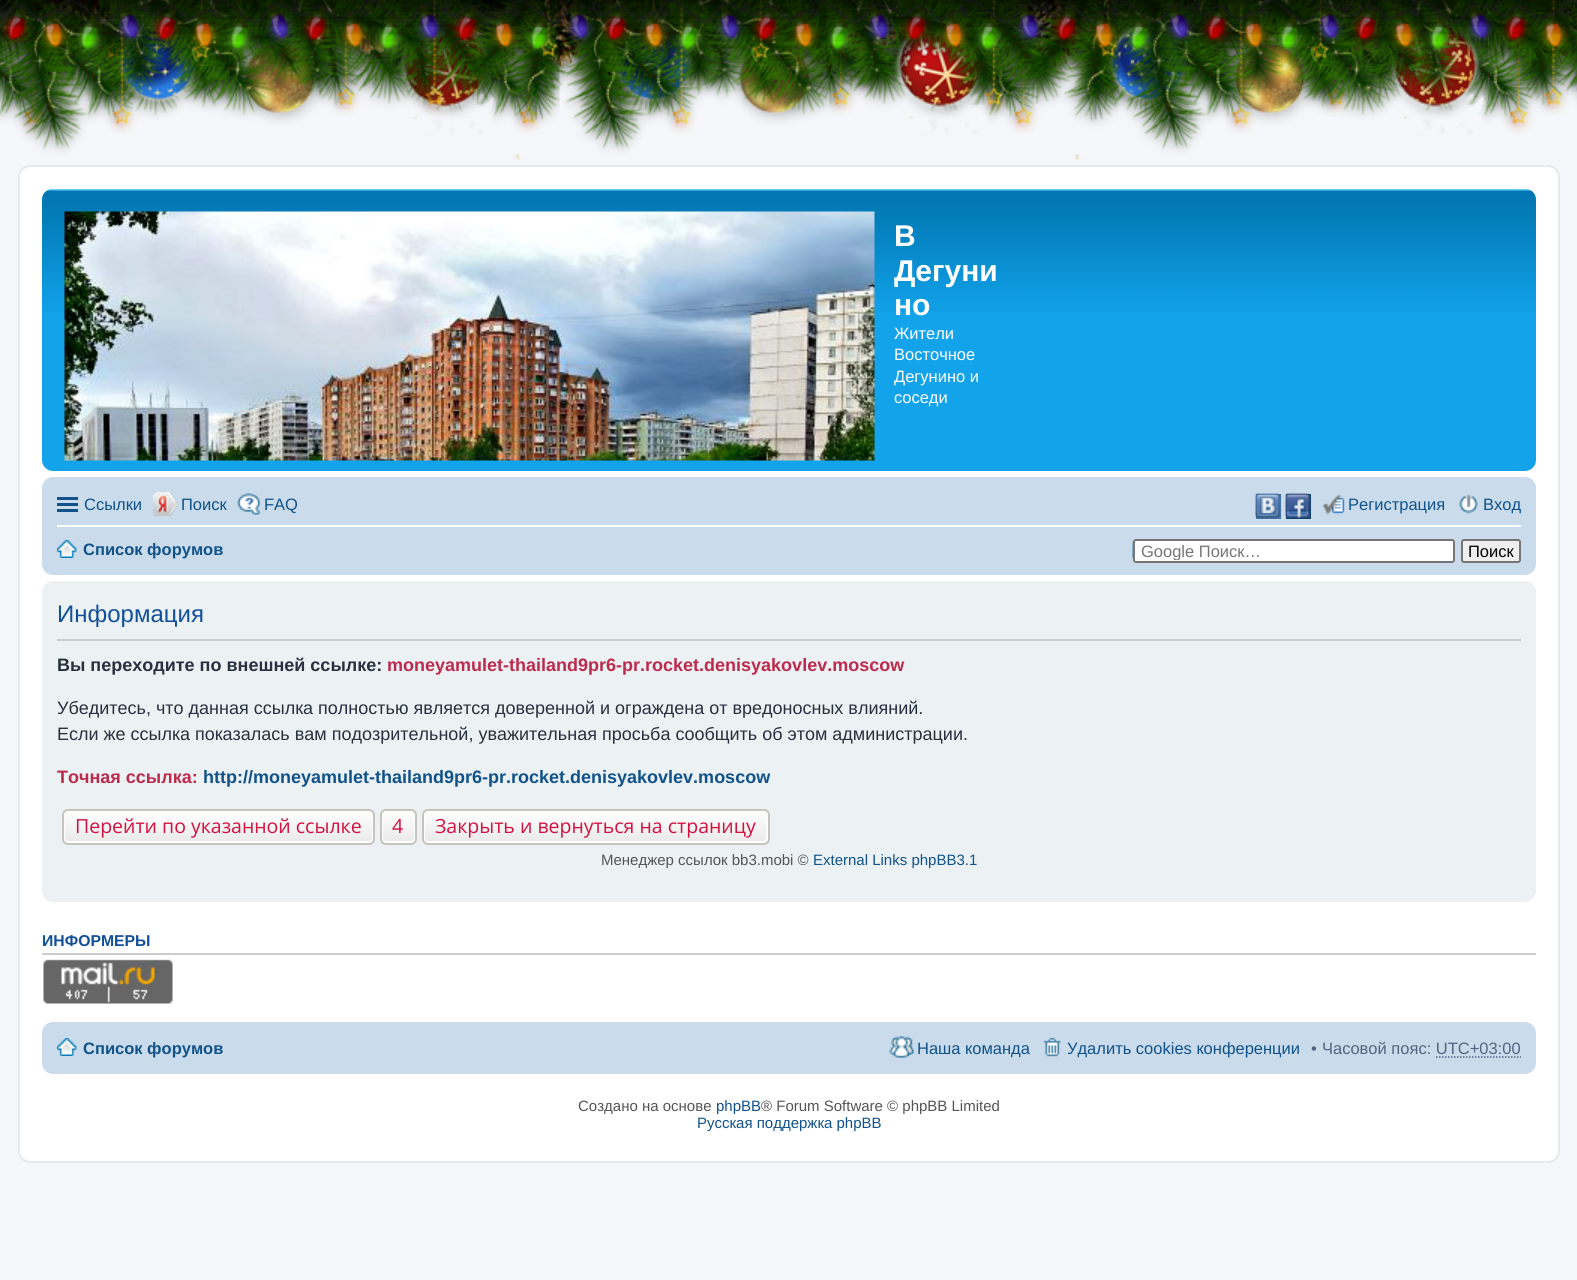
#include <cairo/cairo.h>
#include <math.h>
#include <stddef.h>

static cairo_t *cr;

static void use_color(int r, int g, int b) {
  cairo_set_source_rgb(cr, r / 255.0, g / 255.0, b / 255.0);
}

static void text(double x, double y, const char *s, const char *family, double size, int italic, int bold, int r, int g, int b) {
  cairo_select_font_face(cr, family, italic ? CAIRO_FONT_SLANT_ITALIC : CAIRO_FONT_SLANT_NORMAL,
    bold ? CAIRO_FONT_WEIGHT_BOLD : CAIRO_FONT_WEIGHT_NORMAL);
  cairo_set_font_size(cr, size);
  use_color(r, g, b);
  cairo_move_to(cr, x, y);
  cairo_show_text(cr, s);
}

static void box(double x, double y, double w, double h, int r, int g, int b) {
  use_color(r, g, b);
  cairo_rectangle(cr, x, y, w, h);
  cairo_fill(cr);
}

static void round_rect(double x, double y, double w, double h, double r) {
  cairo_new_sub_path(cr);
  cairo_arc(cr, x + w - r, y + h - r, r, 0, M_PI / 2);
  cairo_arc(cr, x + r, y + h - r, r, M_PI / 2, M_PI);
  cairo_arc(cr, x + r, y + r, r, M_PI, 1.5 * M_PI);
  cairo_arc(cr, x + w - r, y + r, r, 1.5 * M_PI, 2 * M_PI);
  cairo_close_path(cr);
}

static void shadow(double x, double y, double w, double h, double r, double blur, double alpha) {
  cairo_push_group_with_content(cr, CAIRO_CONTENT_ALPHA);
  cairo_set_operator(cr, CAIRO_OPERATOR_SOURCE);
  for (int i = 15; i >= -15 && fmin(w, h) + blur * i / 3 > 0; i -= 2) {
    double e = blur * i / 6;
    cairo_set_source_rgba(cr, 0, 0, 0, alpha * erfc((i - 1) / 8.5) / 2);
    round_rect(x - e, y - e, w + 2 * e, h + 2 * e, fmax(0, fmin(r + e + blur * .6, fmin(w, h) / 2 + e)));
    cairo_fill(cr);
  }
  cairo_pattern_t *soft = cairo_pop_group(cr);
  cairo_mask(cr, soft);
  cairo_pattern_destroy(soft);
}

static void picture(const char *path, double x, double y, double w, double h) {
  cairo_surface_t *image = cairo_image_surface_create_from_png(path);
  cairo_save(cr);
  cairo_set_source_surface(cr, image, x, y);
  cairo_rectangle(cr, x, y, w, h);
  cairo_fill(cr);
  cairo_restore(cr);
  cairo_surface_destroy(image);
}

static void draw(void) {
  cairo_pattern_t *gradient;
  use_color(245, 247, 250);
  cairo_paint(cr);
  picture("img_01.png", 0, 0, 1577, 135);
  picture("img_03.png", 0, 0, 1577, 160);
  picture("img_02.png", 0, 0, 1577, 54);
  use_color(0, 0, 0);
  shadow(0, -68, 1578, 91, 0, 22.5, 0.75);
  use_color(255, 255, 255);
  round_rect(19, 166, 1540, 996, 11);
  cairo_fill_preserve(cr);
  use_color(230, 233, 237);
  cairo_stroke(cr);
  use_color(18, 163, 235);
  round_rect(42, 189, 1494, 282, 11);
  cairo_fill(cr);
  picture("img_04.png", 42, 189, 1494, 123);
  picture("img_05.png", 64, 211, 811, 250);
  use_color(202, 220, 235);
  round_rect(42, 477, 1494, 98, 11);
  cairo_fill(cr);
  box(57, 497, 21, 3, 16, 82, 137);
  box(57, 503, 21, 3, 16, 82, 137);
  box(57, 509, 21, 3, 16, 82, 137);
  picture("img_06.png", 153, 492, 24, 24);
  picture("img_07.png", 237, 493, 24, 22);
  box(1256, 494, 25, 25, 66, 114, 161);
  picture("img_08.png", 1255, 493, 25, 25);
  box(1286, 494, 25, 25, 20, 68, 115);
  picture("img_09.png", 1285, 493, 25, 25);
  picture("img_10.png", 1322, 494, 23, 21);
  picture("img_11.png", 1459, 494, 19, 20);
  box(57, 525, 1464, 2, 255, 255, 255);
  picture("img_12.png", 57, 540, 20, 18);
  picture("img_13.png", 1132, 541, 2, 19);
  round_rect(1134, 540, 320, 22, 2);
  cairo_fill_preserve(cr);
  use_color(118, 118, 118);
  cairo_stroke(cr);
  use_color(239, 239, 239);
  round_rect(1462, 540, 58, 22, 2);
  cairo_fill_preserve(cr);
  use_color(118, 118, 118);
  cairo_stroke(cr);
  use_color(236, 241, 243);
  round_rect(42, 581, 1494, 321, 11);
  cairo_fill(cr);
  box(57, 639, 1464, 2, 204, 204, 204);
  cairo_save(cr);
  round_rect(62, 809, 313, 36, 6);
  cairo_clip(cr);
  gradient = cairo_pattern_create_linear(218, 810, 218, 843);
  cairo_pattern_add_color_stop_rgba(gradient, 0, 1, 1, 1, 1);
  cairo_pattern_add_color_stop_rgba(gradient, 1, 0.914, 0.914, 0.914, 1);
  cairo_set_source(cr, gradient);
  cairo_pattern_destroy(gradient);
  cairo_rectangle(cr, 62, 810, 313, 33);
  cairo_fill(cr);
  cairo_restore(cr);
  round_rect(64, 811, 309, 31, 4);
  use_color(255, 255, 255);
  cairo_stroke(cr);
  round_rect(63, 810, 311, 34, 5);
  use_color(199, 195, 191);
  cairo_stroke(cr);
  cairo_save(cr);
  round_rect(380, 809, 37, 36, 6);
  cairo_clip(cr);
  gradient = cairo_pattern_create_linear(398, 810, 398, 843);
  cairo_pattern_add_color_stop_rgba(gradient, 0, 1, 1, 1, 1);
  cairo_pattern_add_color_stop_rgba(gradient, 1, 0.914, 0.914, 0.914, 1);
  cairo_set_source(cr, gradient);
  cairo_pattern_destroy(gradient);
  cairo_rectangle(cr, 380, 810, 37, 33);
  cairo_fill(cr);
  cairo_restore(cr);
  round_rect(382, 811, 33, 31, 4);
  use_color(255, 255, 255);
  cairo_stroke(cr);
  round_rect(381, 810, 35, 34, 5);
  use_color(199, 195, 191);
  cairo_stroke(cr);
  cairo_save(cr);
  round_rect(422, 809, 348, 36, 6);
  cairo_clip(cr);
  gradient = cairo_pattern_create_linear(596, 810, 596, 843);
  cairo_pattern_add_color_stop_rgba(gradient, 0, 1, 1, 1, 1);
  cairo_pattern_add_color_stop_rgba(gradient, 1, 0.914, 0.914, 0.914, 1);
  cairo_set_source(cr, gradient);
  cairo_pattern_destroy(gradient);
  cairo_rectangle(cr, 422, 810, 348, 33);
  cairo_fill(cr);
  cairo_restore(cr);
  round_rect(424, 811, 343, 31, 4);
  use_color(255, 255, 255);
  cairo_stroke(cr);
  round_rect(423, 810, 346, 34, 5);
  use_color(199, 195, 191);
  cairo_stroke(cr);
  box(42, 953, 1494, 2, 204, 204, 204);
  picture("img_14.png", 43, 959, 130, 45);
  use_color(202, 220, 235);
  round_rect(42, 1022, 1494, 52, 11);
  cairo_fill(cr);
  picture("img_12.png", 57, 1038, 20, 18);
  picture("img_15.png", 889, 1036, 25, 22);
  picture("img_16.png", 1043, 1037, 18, 20);
  cairo_new_path(cr);
  cairo_move_to(cr, 1436, 1057);
  cairo_line_to(cr, 1521, 1057);
  use_color(83, 100, 130);
  cairo_set_line_width(cr, 1.5);
  cairo_set_dash(cr, (double[]){1.5, 1.5}, 2, 0);
  cairo_stroke(cr);
  text(894, 246, "В", "Liberation Sans", 30, 0, 1, 255, 255, 255);
  text(894, 281, "Дегуни", "Liberation Sans", 30, 0, 1, 255, 255, 255);
  text(894, 315, "но", "Liberation Sans", 30, 0, 1, 255, 255, 255);
  text(894, 339, "Жители", "Liberation Sans", 16.5, 0, 0, 255, 255, 255);
  text(894, 360, "Восточное", "Liberation Sans", 16.5, 0, 0, 255, 255, 255);
  text(894, 382, "Дегунино и", "Liberation Sans", 16.5, 0, 0, 255, 255, 255);
  text(894, 403, "соседи", "Liberation Sans", 16.5, 0, 0, 255, 255, 255);
  text(84, 510, "Ссылки", "Liberation Sans", 16.5, 0, 0, 16, 82, 137);
  text(181, 510, "Поиск", "Liberation Sans", 16.5, 0, 0, 16, 82, 137);
  text(264, 510, "FAQ", "Liberation Sans", 16.5, 0, 0, 16, 82, 137);
  text(1348, 510, "Регистрация", "Liberation Sans", 16.5, 0, 0, 16, 82, 137);
  text(1483, 510, "Вход", "Liberation Sans", 16.5, 0, 0, 16, 82, 137);
  text(83, 555, "Список форумов", "Liberation Sans", 16.5, 0, 1, 16, 82, 137);
  cairo_save(cr);
  cairo_rectangle(cr, 1140, 542, 308, 18);
  cairo_clip(cr);
  text(1141, 557, "Google Поиск…", "Liberation Sans", 16.5, 0, 0, 117, 117, 117);
  cairo_restore(cr);
  text(1468, 557, "Поиск", "Liberation Sans", 16.5, 0, 0, 0, 0, 0);
  text(57, 622, "Информация", "Liberation Sans", 24, 0, 0, 17, 80, 152);
  text(57, 671, "Вы переходите по внешней ссылке:", "Liberation Sans", 18, 0, 1, 40, 49, 63);
  text(387, 671, "moneyamulet-thailand9pr6-pr.rocket.denisyakovlev.moscow", "Liberation Sans", 18, 0, 1, 188, 42, 77);
  text(57, 714, "Убедитесь, что данная ссылка полностью является доверенной и ограждена от вредоносных влияний.", "Liberation Sans", 18, 0, 0, 40, 49, 63);
  text(57, 740, "Если же ссылка показалась вам подозрительной, уважительная просьба сообщить об этом администрации.", "Liberation Sans", 18, 0, 0, 40, 49, 63);
  text(57, 783, "Точная ссылка:", "Liberation Sans", 18, 0, 1, 188, 42, 77);
  text(203, 783, "http://moneyamulet-thailand9pr6-pr.rocket.denisyakovlev.moscow", "Liberation Sans", 18, 0, 1, 16, 82, 137);
  text(75, 833, "Перейти по указанной ссылке", "Open Sans", 19.5, 0, 0, 211, 17, 65);
  text(392, 833, "4", "Open Sans", 19.5, 0, 0, 211, 17, 65);
  text(435, 833, "Закрыть и вернуться на страницу", "Open Sans", 19.5, 0, 0, 211, 17, 65);
  text(601, 865, "Менеджер ссылок bb3.mobi ©", "Liberation Sans", 15, 0, 0, 85, 85, 85);
  text(813, 865, "External Links phpBB3.1", "Liberation Sans", 15, 0, 0, 16, 82, 137);
  text(42, 946, "ИНФОРМЕРЫ", "Liberation Sans", 15.75, 0, 1, 17, 80, 152);
  text(83, 1054, "Список форумов", "Liberation Sans", 16.5, 0, 1, 16, 82, 137);
  text(917, 1054, "Наша команда", "Liberation Sans", 16.5, 0, 0, 16, 82, 137);
  text(1067, 1054, "Удалить cookies конференции", "Liberation Sans", 16.5, 0, 0, 16, 82, 137);
  text(1311, 1054, "•", "Liberation Sans", 16.5, 0, 0, 83, 100, 130);
  text(1322, 1054, "Часовой пояс: UTC+03:00", "Liberation Sans", 16.5, 0, 0, 83, 100, 130);
  text(578, 1111, "Создано на основе", "Liberation Sans", 15, 0, 0, 85, 85, 85);
  text(716, 1111, "phpBB", "Liberation Sans", 15, 0, 0, 16, 82, 137);
  text(761, 1111, "® Forum Software © phpBB Limited", "Liberation Sans", 15, 0, 0, 85, 85, 85);
  text(697, 1128, "Русская поддержка phpBB", "Liberation Sans", 15, 0, 0, 16, 82, 137);
}

int main(void) {
  cairo_surface_t *surface = cairo_image_surface_create(CAIRO_FORMAT_RGB24, 1577, 1280);
  cr = cairo_create(surface);
  cairo_font_options_t *options = cairo_font_options_create();
  cairo_font_options_set_hint_metrics(options, CAIRO_HINT_METRICS_OFF);
  cairo_font_options_set_hint_style(options, CAIRO_HINT_STYLE_NONE);
  cairo_set_font_options(cr, options);
  cairo_set_miter_limit(cr, 4);
  draw();
  cairo_surface_write_to_png(surface, "out.png");
  cairo_font_options_destroy(options);
  cairo_destroy(cr);
  cairo_surface_destroy(surface);
  return 0;
}
